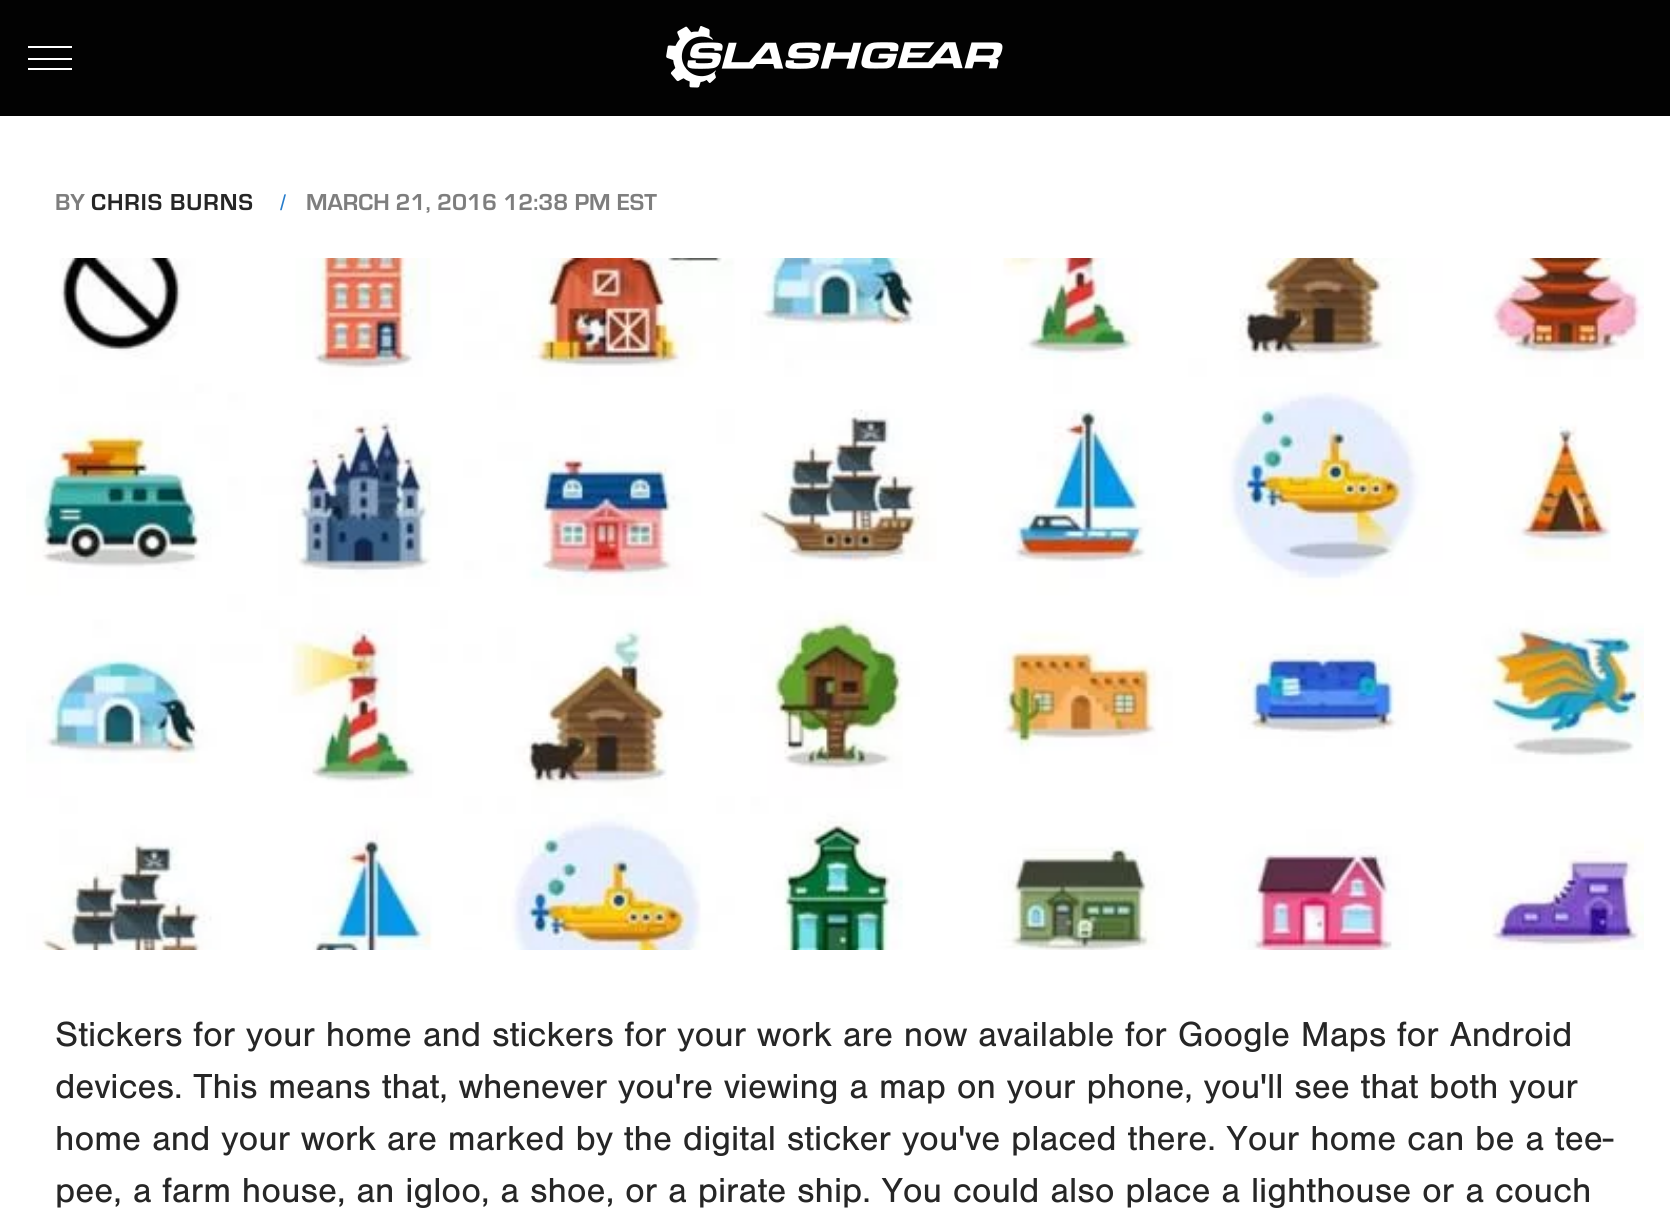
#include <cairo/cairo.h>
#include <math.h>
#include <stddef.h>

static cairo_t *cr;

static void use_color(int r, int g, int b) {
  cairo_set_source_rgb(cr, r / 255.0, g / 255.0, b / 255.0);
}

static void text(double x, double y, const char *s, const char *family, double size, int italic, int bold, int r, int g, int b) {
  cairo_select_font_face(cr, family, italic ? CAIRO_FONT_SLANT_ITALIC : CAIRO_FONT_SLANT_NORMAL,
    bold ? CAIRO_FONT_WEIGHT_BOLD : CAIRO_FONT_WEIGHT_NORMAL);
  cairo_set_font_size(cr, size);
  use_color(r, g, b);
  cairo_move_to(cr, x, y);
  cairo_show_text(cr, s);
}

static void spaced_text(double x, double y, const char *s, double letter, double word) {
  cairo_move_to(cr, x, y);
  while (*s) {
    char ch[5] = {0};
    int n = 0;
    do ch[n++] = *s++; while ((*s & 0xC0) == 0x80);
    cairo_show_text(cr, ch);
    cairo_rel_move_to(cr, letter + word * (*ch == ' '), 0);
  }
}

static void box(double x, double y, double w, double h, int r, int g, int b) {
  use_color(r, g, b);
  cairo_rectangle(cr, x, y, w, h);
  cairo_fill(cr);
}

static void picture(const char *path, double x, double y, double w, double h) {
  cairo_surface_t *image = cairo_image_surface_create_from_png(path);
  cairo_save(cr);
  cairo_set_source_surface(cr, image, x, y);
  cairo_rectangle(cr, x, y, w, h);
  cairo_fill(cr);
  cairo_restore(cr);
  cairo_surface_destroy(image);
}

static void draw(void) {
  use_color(255, 255, 255);
  cairo_paint(cr);
  box(0, 0, 1670, 116, 2, 2, 2);
  box(28, 46, 44, 2, 255, 255, 255);
  box(28, 58, 44, 2, 255, 255, 255);
  box(28, 68, 44, 2, 255, 255, 255);
  picture("img_01.png", 666, 26, 337, 62);
  picture("img_02.png", 26, 258, 1618, 692);
  text(55, 210, "BY", "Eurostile", 21.6, 0, 1, 126, 126, 126);
  use_color(38, 38, 38);
  spaced_text(91, 210, "CHRIS BURNS", 1, 0);
  text(280, 210, "/", "Liberation Sans", 21.6, 0, 0, 38, 124, 203);
  text(306, 210, "MARCH 21, 2016 12:38 PM EST", "Eurostile", 21.6, 0, 1, 126, 126, 126);
  text(55, 1046, "Stickers for your home and stickers for your work are now available for Google Maps for Android", "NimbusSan", 36, 0, 0, 38, 38, 38);
  text(55, 1098, "devices. This means that, whenever you're viewing a map on your phone, you'll see that both your", "NimbusSan", 36, 0, 0, 38, 38, 38);
  text(55, 1150, "home and your work are marked by the digital sticker you've placed there. Your home can be a tee-", "NimbusSan", 36, 0, 0, 38, 38, 38);
  text(55, 1202, "pee, a farm house, an igloo, a shoe, or a pirate ship. You could also place a lighthouse or a couch", "NimbusSan", 36, 0, 0, 38, 38, 38);
}

int main(void) {
  cairo_surface_t *surface = cairo_image_surface_create(CAIRO_FORMAT_RGB24, 1670, 1229);
  cr = cairo_create(surface);
  cairo_font_options_t *options = cairo_font_options_create();
  cairo_font_options_set_hint_metrics(options, CAIRO_HINT_METRICS_OFF);
  cairo_font_options_set_hint_style(options, CAIRO_HINT_STYLE_NONE);
  cairo_set_font_options(cr, options);
  cairo_set_miter_limit(cr, 4);
  draw();
  cairo_surface_write_to_png(surface, "out.png");
  cairo_font_options_destroy(options);
  cairo_destroy(cr);
  cairo_surface_destroy(surface);
  return 0;
}
